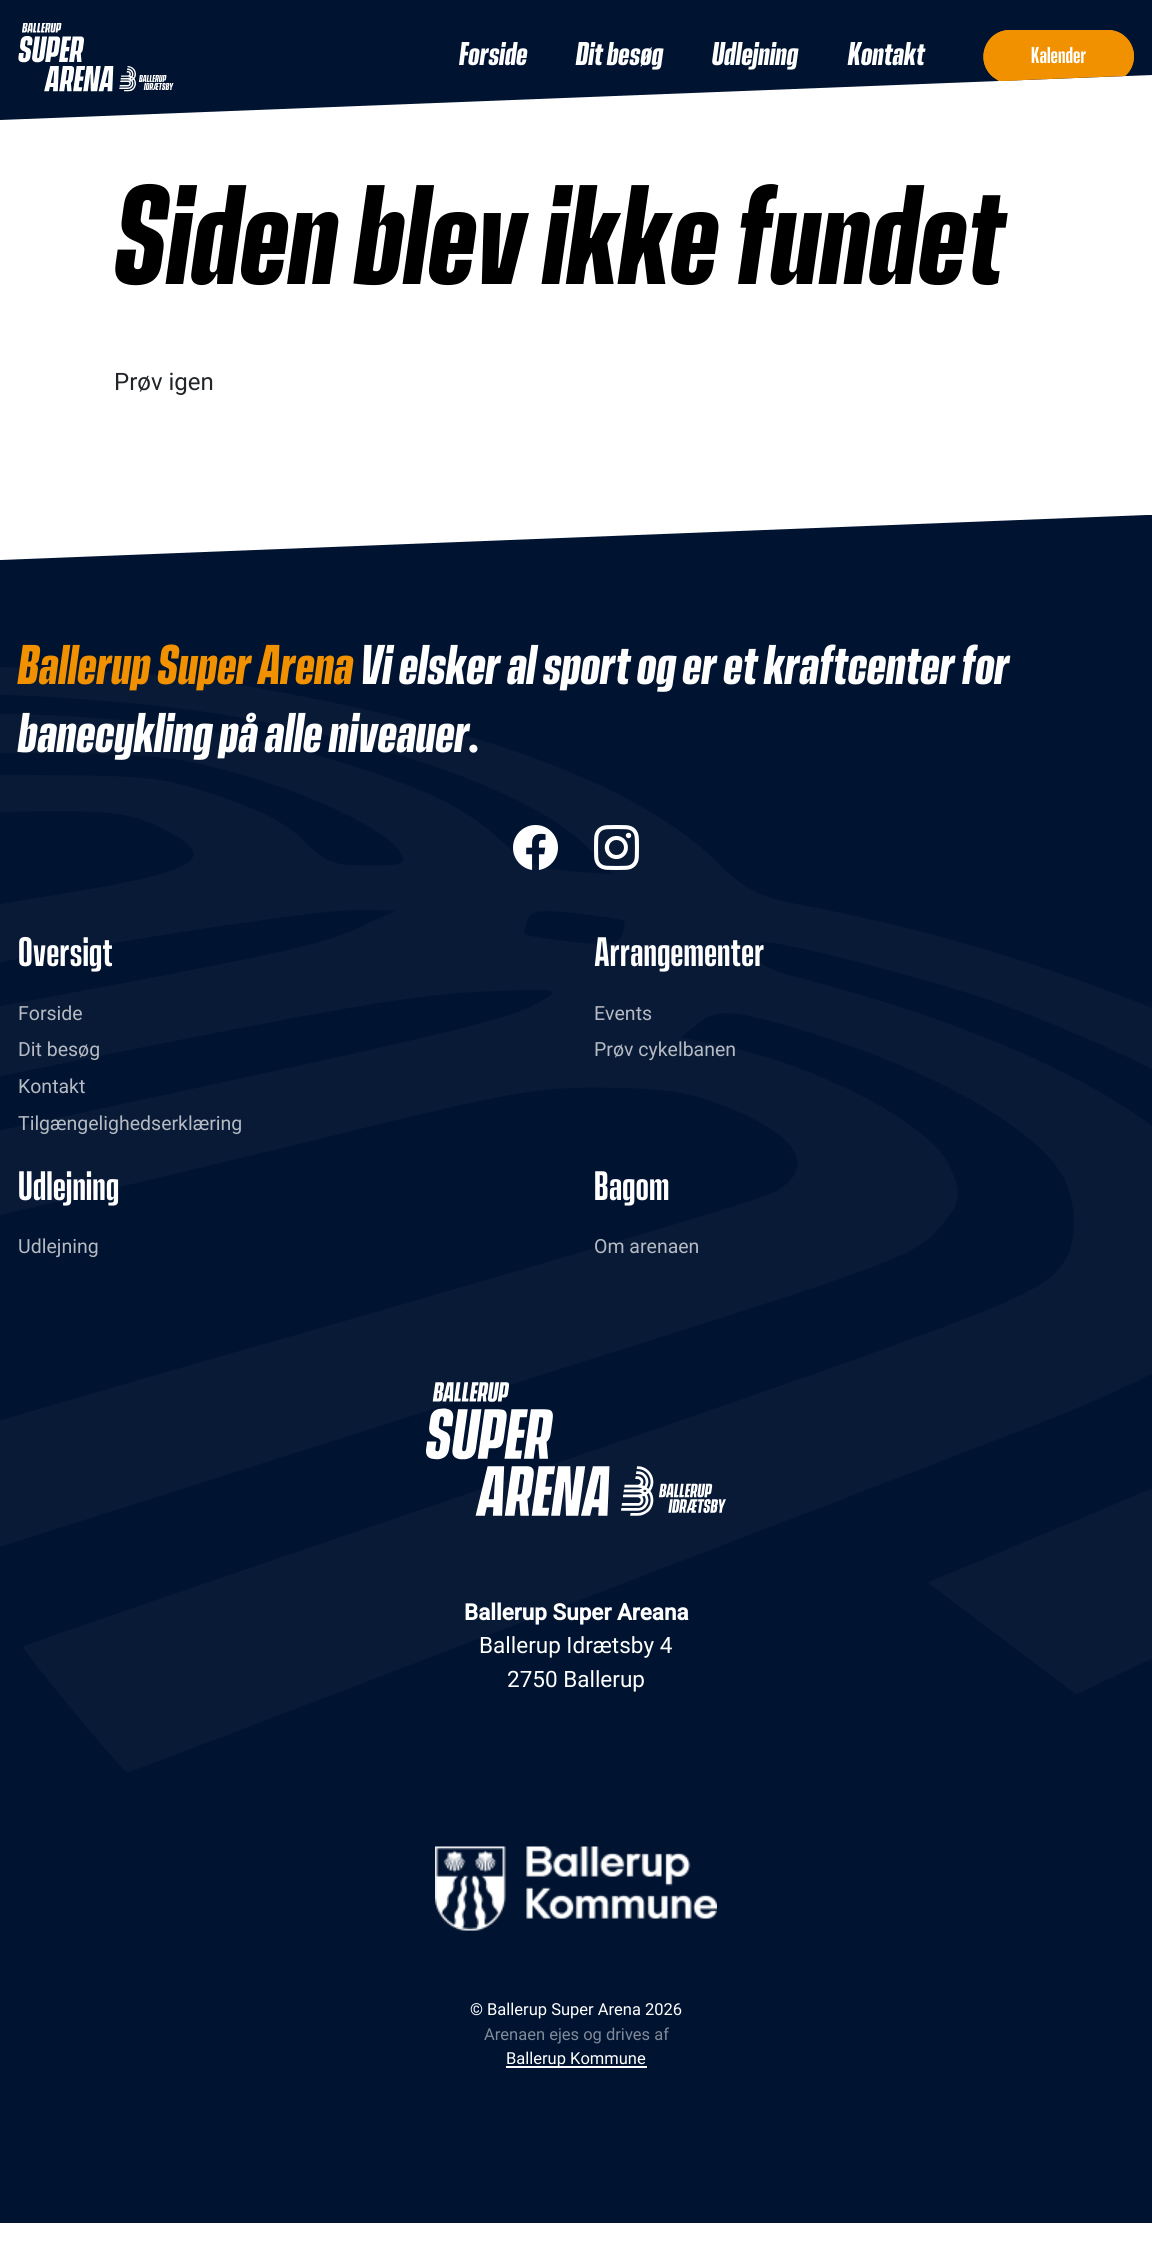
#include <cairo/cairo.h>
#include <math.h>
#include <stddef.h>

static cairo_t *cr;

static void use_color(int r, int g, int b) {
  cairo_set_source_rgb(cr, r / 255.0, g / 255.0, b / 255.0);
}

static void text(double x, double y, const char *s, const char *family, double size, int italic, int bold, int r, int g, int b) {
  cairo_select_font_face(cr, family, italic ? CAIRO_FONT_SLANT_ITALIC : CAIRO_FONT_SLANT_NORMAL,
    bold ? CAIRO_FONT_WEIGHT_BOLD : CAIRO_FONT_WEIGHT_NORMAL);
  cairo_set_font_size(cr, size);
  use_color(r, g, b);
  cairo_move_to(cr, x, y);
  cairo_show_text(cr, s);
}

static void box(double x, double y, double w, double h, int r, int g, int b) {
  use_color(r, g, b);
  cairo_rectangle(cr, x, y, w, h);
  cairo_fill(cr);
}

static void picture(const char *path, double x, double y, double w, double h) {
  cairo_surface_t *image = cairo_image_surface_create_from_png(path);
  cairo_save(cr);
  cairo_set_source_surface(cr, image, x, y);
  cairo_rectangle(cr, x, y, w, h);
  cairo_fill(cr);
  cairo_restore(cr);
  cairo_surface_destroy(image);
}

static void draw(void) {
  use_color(255, 255, 255);
  cairo_paint(cr);
  use_color(0, 19, 48);
  cairo_new_path(cr);
  cairo_move_to(cr, 0, 0);
  cairo_line_to(cr, 0, 120);
  cairo_line_to(cr, 1152, 75);
  cairo_line_to(cr, 1152, 0);
  cairo_close_path(cr);
  cairo_fill(cr);
  picture("img_01.png", 18, 23, 156, 69);
  use_color(242, 145, 0);
  cairo_new_path(cr);
  cairo_move_to(cr, 1010, 30);
  cairo_line_to(cr, 1108, 30);
  cairo_curve_to(cr, 1122, 30, 1134, 42, 1134, 56);
  cairo_curve_to(cr, 1134, 64, 1131, 71, 1125, 76);
  cairo_line_to(cr, 999, 81);
  cairo_line_to(cr, 993, 77);
  cairo_curve_to(cr, 974, 61, 985, 30, 1010, 30);
  cairo_close_path(cr);
  cairo_fill(cr);
  cairo_new_path(cr);
  cairo_move_to(cr, 1010, 30);
  cairo_curve_to(cr, 985, 30, 974, 61, 993, 77);
  cairo_line_to(cr, 999, 81);
  cairo_line_to(cr, 1024, 80);
  cairo_line_to(cr, 1010, 80);
  cairo_curve_to(cr, 997, 80, 986, 69, 986, 56);
  cairo_curve_to(cr, 986, 44, 997, 33, 1010, 33);
  cairo_line_to(cr, 1108, 33);
  cairo_curve_to(cr, 1120, 33, 1131, 44, 1131, 56);
  cairo_curve_to(cr, 1131, 65, 1127, 72, 1120, 76);
  cairo_line_to(cr, 1125, 76);
  cairo_curve_to(cr, 1143, 60, 1132, 30, 1108, 30);
  cairo_close_path(cr);
  cairo_fill(cr);
  use_color(0, 19, 48);
  cairo_new_path(cr);
  cairo_move_to(cr, 0, 560);
  cairo_line_to(cr, 0, 2223);
  cairo_line_to(cr, 1152, 2223);
  cairo_line_to(cr, 1152, 515);
  cairo_line_to(cr, 1146, 515);
  cairo_close_path(cr);
  cairo_fill(cr);
  picture("img_02.png", 0, 667, 1152, 1105);
  picture("img_03.png", 513, 825, 45, 45);
  picture("img_04.png", 594, 825, 45, 45);
  picture("img_05.png", 426, 1382, 300, 134);
  picture("img_06.png", 435, 1846, 282, 85);
  box(506, 2066, 141, 2, 255, 255, 255);
  text(459, 65, "Forside", "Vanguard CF", 30, 1, 1, 255, 255, 255);
  text(576, 65, "Dit besøg", "Vanguard CF", 30, 1, 1, 255, 255, 255);
  text(712, 65, "Udlejning", "Vanguard CF", 30, 1, 1, 255, 255, 255);
  text(848, 65, "Kontakt", "Vanguard CF", 30, 1, 1, 255, 255, 255);
  text(1031, 63, "Kalender", "Vanguard CF SemiBold", 21, 0, 0, 255, 255, 255);
  text(114, 284, "Siden blev ikke fundet", "Vanguard CF", 129, 1, 1, 0, 0, 0);
  text(114, 390, "Prøv igen", "Roboto", 24, 0, 0, 33, 37, 41);
  text(18, 684, "Ballerup Super Arena", "Vanguard CF", 51, 1, 1, 242, 145, 0);
  text(360, 684, "Vi elsker al sport og er et kraftcenter for", "Vanguard CF", 51, 1, 1, 255, 255, 255);
  text(18, 752, "banecykling på alle niveauer.", "Vanguard CF", 51, 1, 1, 255, 255, 255);
  text(18, 966, "Oversigt", "Vanguard CF SemiBold", 37.5, 0, 0, 255, 255, 255);
  text(18, 1020, "Forside", "Roboto", 19.5, 0, 0, 181, 186, 195);
  text(18, 1056, "Dit besøg", "Roboto", 19.5, 0, 0, 181, 186, 195);
  text(18, 1093, "Kontakt", "Roboto", 19.5, 0, 0, 181, 186, 195);
  text(18, 1130, "Tilgængelighedserklæring", "Roboto", 19.5, 0, 0, 181, 186, 195);
  text(594, 966, "Arrangementer", "Vanguard CF SemiBold", 37.5, 0, 0, 255, 255, 255);
  text(594, 1020, "Events", "Roboto", 19.5, 0, 0, 181, 186, 195);
  text(594, 1056, "Prøv cykelbanen", "Roboto", 19.5, 0, 0, 181, 186, 195);
  text(18, 1200, "Udlejning", "Vanguard CF SemiBold", 37.5, 0, 0, 255, 255, 255);
  text(18, 1253, "Udlejning", "Roboto", 19.5, 0, 0, 181, 186, 195);
  text(594, 1200, "Bagom", "Vanguard CF SemiBold", 37.5, 0, 0, 255, 255, 255);
  text(594, 1253, "Om arenaen", "Roboto", 19.5, 0, 0, 181, 186, 195);
  text(464, 1620, "Ballerup Super Areana", "Roboto", 22.5, 0, 1, 255, 255, 255);
  text(479, 1653, "Ballerup Idrætsby 4", "Roboto", 22.5, 0, 0, 255, 255, 255);
  text(507, 1687, "2750 Ballerup", "Roboto", 22.5, 0, 0, 255, 255, 255);
  text(470, 2015, "© Ballerup Super Arena 2026", "Roboto", 16.5, 0, 0, 255, 255, 255);
  text(484, 2040, "Arenaen ejes og drives af", "Roboto", 16.5, 0, 0, 128, 137, 152);
  text(506, 2064, "Ballerup Kommune", "Roboto", 16.5, 0, 0, 255, 255, 255);
}

int main(void) {
  cairo_surface_t *surface = cairo_image_surface_create(CAIRO_FORMAT_RGB24, 1152, 2243);
  cr = cairo_create(surface);
  cairo_font_options_t *options = cairo_font_options_create();
  cairo_font_options_set_hint_metrics(options, CAIRO_HINT_METRICS_OFF);
  cairo_font_options_set_hint_style(options, CAIRO_HINT_STYLE_NONE);
  cairo_set_font_options(cr, options);
  cairo_set_miter_limit(cr, 4);
  draw();
  cairo_surface_write_to_png(surface, "out.png");
  cairo_font_options_destroy(options);
  cairo_destroy(cr);
  cairo_surface_destroy(surface);
  return 0;
}
